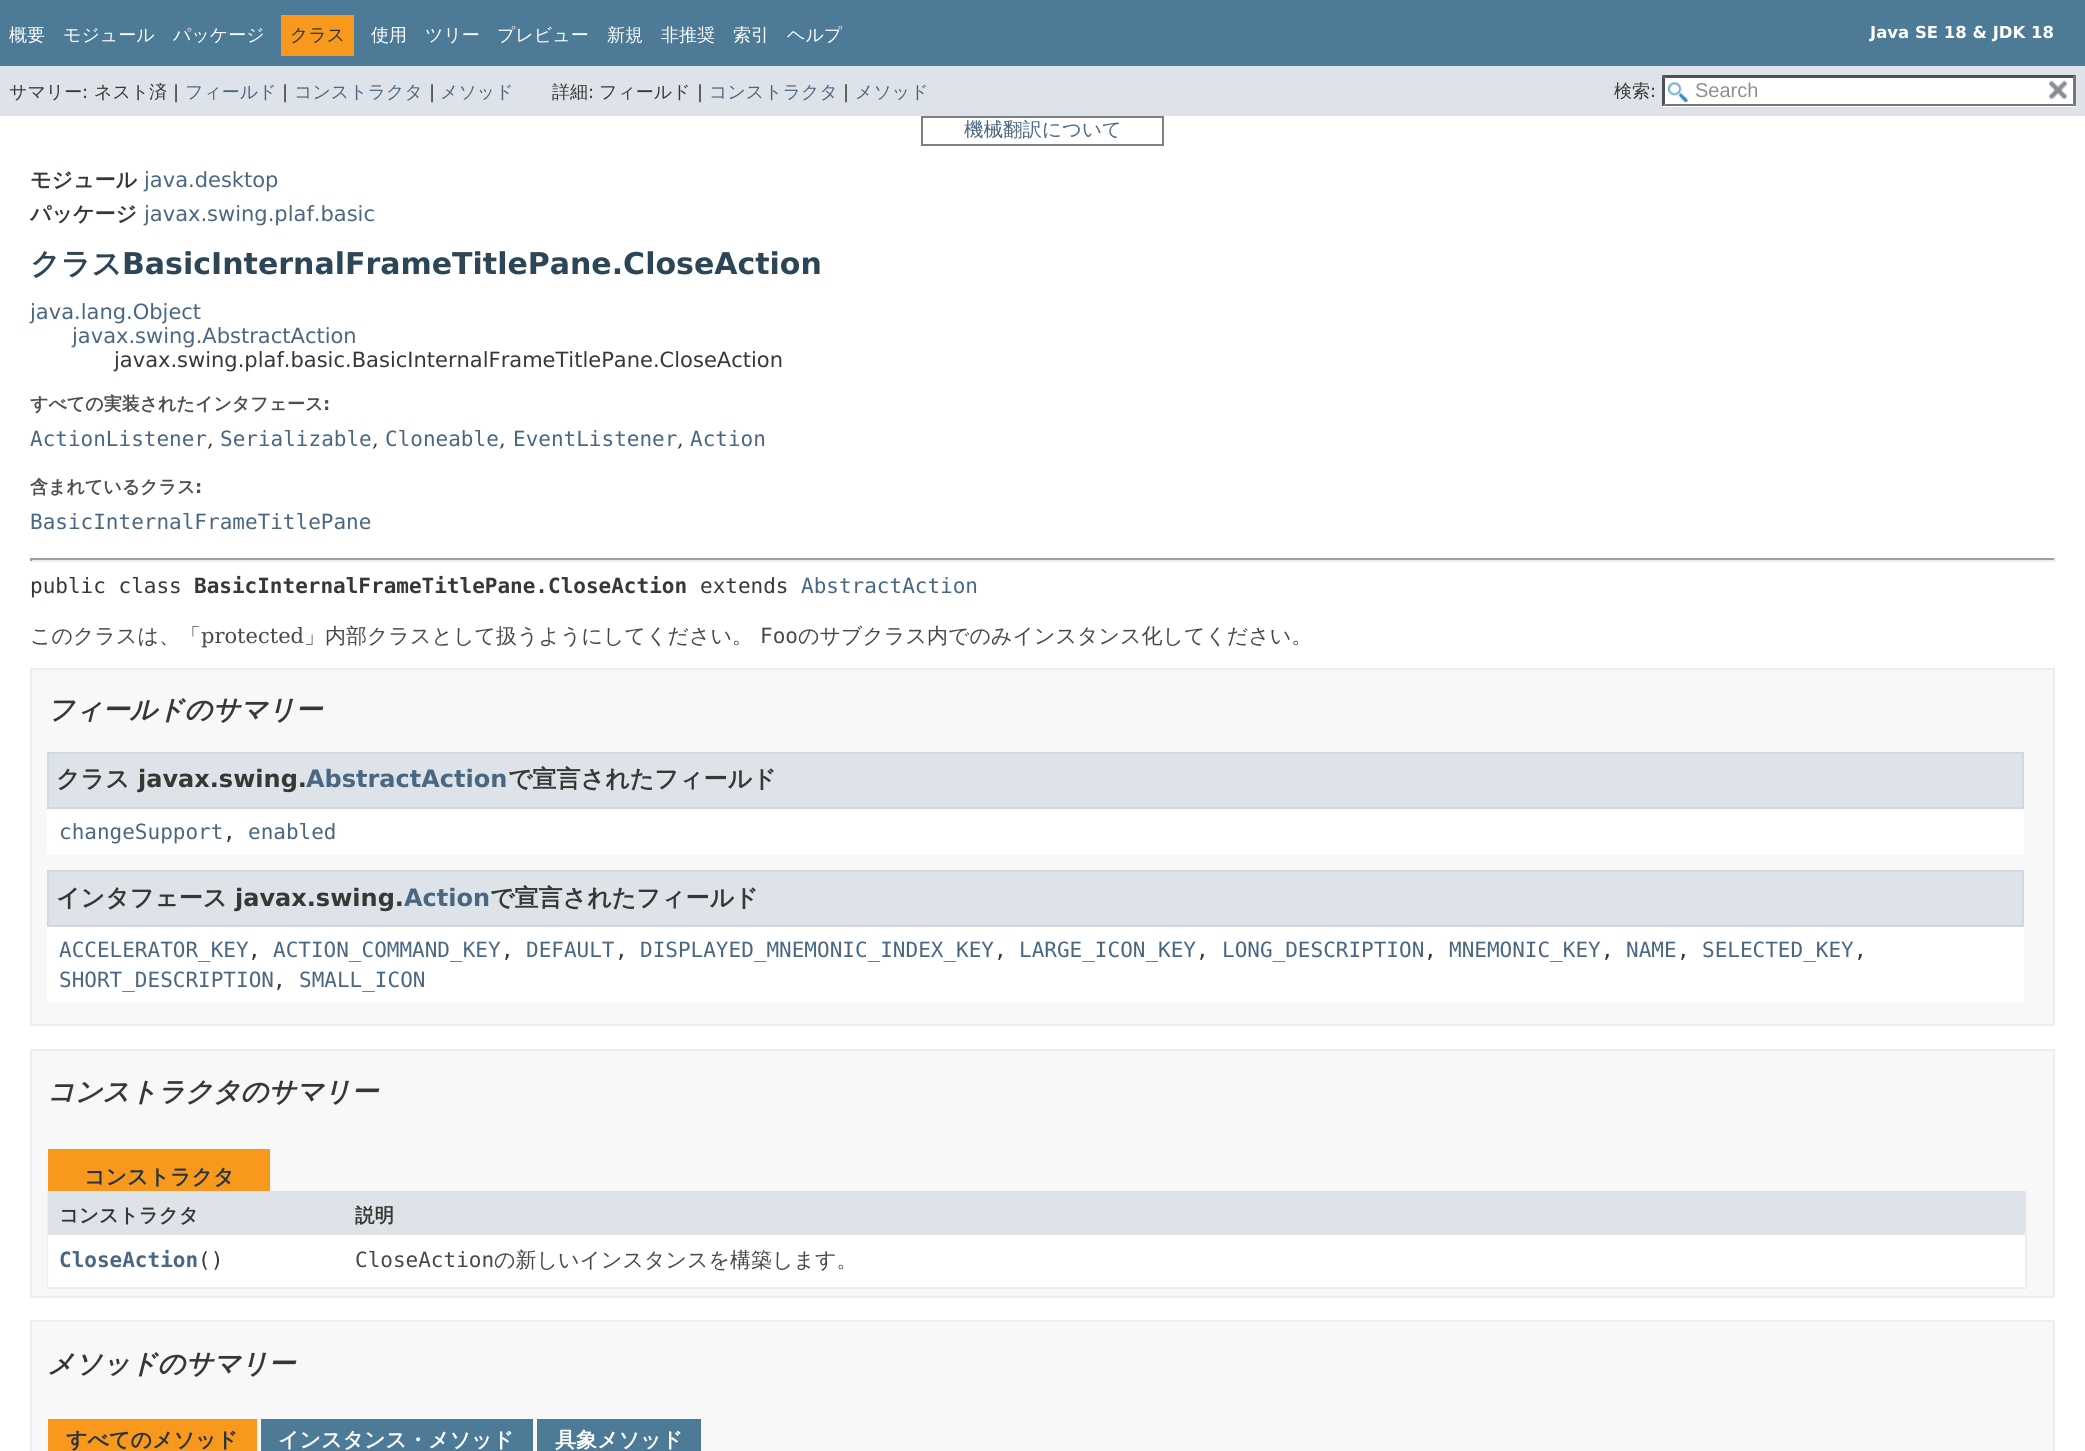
#include <cairo/cairo.h>
#include <math.h>
#include <stddef.h>

static cairo_t *cr;

static void use_color(int r, int g, int b) {
  cairo_set_source_rgb(cr, r / 255.0, g / 255.0, b / 255.0);
}

static void text(double x, double y, const char *s, const char *family, double size, int italic, int bold, int r, int g, int b) {
  cairo_select_font_face(cr, family, italic ? CAIRO_FONT_SLANT_ITALIC : CAIRO_FONT_SLANT_NORMAL,
    bold ? CAIRO_FONT_WEIGHT_BOLD : CAIRO_FONT_WEIGHT_NORMAL);
  cairo_set_font_size(cr, size);
  use_color(r, g, b);
  cairo_move_to(cr, x, y);
  cairo_show_text(cr, s);
}

static void box(double x, double y, double w, double h, int r, int g, int b) {
  use_color(r, g, b);
  cairo_rectangle(cr, x, y, w, h);
  cairo_fill(cr);
}

static void picture(const char *path, double x, double y, double w, double h) {
  cairo_surface_t *image = cairo_image_surface_create_from_png(path);
  cairo_save(cr);
  cairo_set_source_surface(cr, image, x, y);
  cairo_rectangle(cr, x, y, w, h);
  cairo_fill(cr);
  cairo_restore(cr);
  cairo_surface_destroy(image);
}

static void draw(void) {
  use_color(255, 255, 255);
  cairo_paint(cr);
  box(0, 0, 2085, 66, 77, 122, 151);
  box(281, 15, 73, 41, 248, 152, 29);
  box(0, 66, 2085, 50, 222, 227, 233);
  box(1662, 75, 414, 32, 255, 255, 255);
  picture("img_01.png", 1668, 82, 20, 20);
  use_color(79, 79, 79);
  cairo_new_path(cr);
  cairo_move_to(cr, 1662, 75);
  cairo_line_to(cr, 2076, 75);
  cairo_line_to(cr, 2073, 78);
  cairo_line_to(cr, 1665, 78);
  cairo_close_path(cr);
  cairo_fill(cr);
  use_color(118, 118, 118);
  cairo_new_path(cr);
  cairo_move_to(cr, 2076, 75);
  cairo_line_to(cr, 2076, 106.5);
  cairo_line_to(cr, 2073, 103.5);
  cairo_line_to(cr, 2073, 78);
  cairo_close_path(cr);
  cairo_fill(cr);
  cairo_new_path(cr);
  cairo_move_to(cr, 2076, 106);
  cairo_line_to(cr, 1662, 106);
  cairo_line_to(cr, 1665, 104);
  cairo_line_to(cr, 2073, 104);
  cairo_close_path(cr);
  cairo_fill(cr);
  use_color(79, 79, 79);
  cairo_new_path(cr);
  cairo_move_to(cr, 1662, 106.5);
  cairo_line_to(cr, 1662, 75);
  cairo_line_to(cr, 1665, 78);
  cairo_line_to(cr, 1665, 103.5);
  cairo_close_path(cr);
  cairo_fill(cr);
  picture("img_02.png", 2049, 80, 18, 19);
  cairo_rectangle(cr, 922, 117, 241, 28);
  use_color(128, 128, 128);
  cairo_stroke(cr);
  box(30, 558, 2025, 2, 159, 159, 159);
  box(2054, 558, 2, 3, 238, 238, 238);
  box(30, 560, 2025, 2, 238, 238, 238);
  box(30, 558, 2, 3, 159, 159, 159);
  use_color(248, 248, 248);
  cairo_rectangle(cr, 31, 669, 2023, 356);
  cairo_fill_preserve(cr);
  use_color(237, 237, 237);
  cairo_stroke(cr);
  box(47, 809, 1977, 46, 255, 255, 255);
  use_color(222, 227, 233);
  cairo_rectangle(cr, 48, 753, 1975, 55);
  cairo_fill_preserve(cr);
  use_color(208, 217, 224);
  cairo_stroke(cr);
  box(47, 927, 1977, 75, 255, 255, 255);
  use_color(222, 227, 233);
  cairo_rectangle(cr, 48, 871, 1975, 55);
  cairo_fill_preserve(cr);
  use_color(208, 217, 224);
  cairo_stroke(cr);
  use_color(248, 248, 248);
  cairo_rectangle(cr, 31, 1050, 2023, 247);
  cairo_fill_preserve(cr);
  use_color(237, 237, 237);
  cairo_stroke(cr);
  box(48, 1149, 222, 42, 248, 152, 29);
  box(2025, 1191, 2, 98, 238, 238, 238);
  box(47, 1287, 1980, 2, 238, 238, 238);
  box(47, 1191, 2, 98, 238, 238, 238);
  box(48, 1191, 1977, 44, 222, 227, 233);
  box(48, 1235, 1977, 52, 255, 255, 255);
  use_color(248, 248, 248);
  cairo_rectangle(cr, 31, 1321, 2023, 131);
  cairo_fill_preserve(cr);
  use_color(237, 237, 237);
  cairo_stroke(cr);
  box(48, 1419, 209, 32, 248, 152, 29);
  box(261, 1419, 272, 32, 77, 122, 151);
  box(537, 1419, 164, 32, 77, 122, 151);
  text(9, 41, "概要", "WenQuanYi Zen Hei Medium", 18, 0, 0, 255, 255, 255);
  text(63, 41, "モジュール", "WenQuanYi Zen Hei Medium", 18, 0, 0, 255, 255, 255);
  text(173, 41, "パッケージ", "WenQuanYi Zen Hei Medium", 18, 0, 0, 255, 255, 255);
  text(290, 41, "クラス", "WenQuanYi Zen Hei Medium", 18, 0, 0, 37, 52, 65);
  text(371, 41, "使用", "WenQuanYi Zen Hei Medium", 18, 0, 0, 255, 255, 255);
  text(425, 41, "ツリー", "WenQuanYi Zen Hei Medium", 18, 0, 0, 255, 255, 255);
  text(497, 41, "プレビュー", "WenQuanYi Zen Hei Medium", 18, 0, 0, 255, 255, 255);
  text(607, 41, "新規", "WenQuanYi Zen Hei Medium", 18, 0, 0, 255, 255, 255);
  text(661, 41, "非推奨", "WenQuanYi Zen Hei Medium", 18, 0, 0, 255, 255, 255);
  text(733, 41, "索引", "WenQuanYi Zen Hei Medium", 18, 0, 0, 255, 255, 255);
  text(787, 41, "ヘルプ", "WenQuanYi Zen Hei Medium", 18, 0, 0, 255, 255, 255);
  text(1870, 38, "Java SE 18 & JDK 18", "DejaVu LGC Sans", 16.5, 0, 1, 255, 255, 255);
  text(9, 98, "サマリー", "WenQuanYi Zen Hei Medium", 18, 0, 0, 53, 56, 51);
  text(82, 98, ":", "DejaVu LGC Sans", 18, 0, 0, 53, 56, 51);
  text(94, 98, "ネスト済", "WenQuanYi Zen Hei Medium", 18, 0, 0, 53, 56, 51);
  text(173, 98, "|", "DejaVu LGC Sans", 18, 0, 0, 53, 56, 51);
  text(185, 98, "フィールド", "WenQuanYi Zen Hei Medium", 18, 0, 0, 74, 103, 130);
  text(282, 98, "|", "DejaVu LGC Sans", 18, 0, 0, 53, 56, 51);
  text(294, 98, "コンストラクタ", "WenQuanYi Zen Hei Medium", 18, 0, 0, 74, 103, 130);
  text(429, 98, "|", "DejaVu LGC Sans", 18, 0, 0, 53, 56, 51);
  text(440, 98, "メソッド", "WenQuanYi Zen Hei Medium", 18, 0, 0, 74, 103, 130);
  text(552, 98, "詳細", "WenQuanYi Zen Hei Medium", 18, 0, 0, 53, 56, 51);
  text(588, 98, ":", "DejaVu LGC Sans", 18, 0, 0, 53, 56, 51);
  text(599, 98, "フィールド", "WenQuanYi Zen Hei Medium", 18, 0, 0, 53, 56, 51);
  text(697, 98, "|", "DejaVu LGC Sans", 18, 0, 0, 53, 56, 51);
  text(709, 98, "コンストラクタ", "WenQuanYi Zen Hei Medium", 18, 0, 0, 74, 103, 130);
  text(843, 98, "|", "DejaVu LGC Sans", 18, 0, 0, 53, 56, 51);
  text(855, 98, "メソッド", "WenQuanYi Zen Hei Medium", 18, 0, 0, 74, 103, 130);
  text(1614, 97, "検索", "WenQuanYi Zen Hei Medium", 18, 0, 0, 53, 56, 51);
  text(1650, 97, ":", "DejaVu LGC Sans", 18, 0, 0, 53, 56, 51);
  text(1695, 97, "Search", "Liberation Sans", 20, 0, 0, 144, 144, 144);
  text(964, 136, "機械翻訳について", "WenQuanYi Zen Hei Medium", 19.5, 0, 0, 74, 103, 130);
  text(30, 187, "モジュール", "WenQuanYi Zen Hei", 21, 0, 1, 53, 56, 51);
  text(144, 187, "java.desktop", "DejaVu LGC Sans", 21, 0, 0, 74, 103, 130);
  text(30, 221, "パッケージ", "WenQuanYi Zen Hei", 21, 0, 1, 53, 56, 51);
  text(144, 221, "javax.swing.plaf.basic", "DejaVu LGC Sans", 21, 0, 0, 74, 103, 130);
  text(30, 274, "クラス", "WenQuanYi Zen Hei", 30, 0, 1, 44, 69, 87);
  text(122, 274, "BasicInternalFrameTitlePane.CloseAction", "DejaVu LGC Sans", 30, 0, 1, 44, 69, 87);
  text(30, 319, "java.lang.Object", "DejaVu LGC Sans", 21, 0, 0, 74, 103, 130);
  text(72, 343, "javax.swing.AbstractAction", "DejaVu LGC Sans", 21, 0, 0, 74, 103, 130);
  text(114, 367, "javax.swing.plaf.basic.BasicInternalFrameTitlePane.CloseAction", "DejaVu LGC Sans", 21, 0, 0, 53, 56, 51);
  text(30, 410, "すべての実装されたインタフェース", "WenQuanYi Zen Hei", 18, 0, 1, 78, 78, 78);
  text(323, 410, ":", "DejaVu LGC Sans", 18, 0, 1, 78, 78, 78);
  text(30, 446, "ActionListener", "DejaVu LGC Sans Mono", 21, 0, 0, 74, 103, 130);
  text(207, 446, ",", "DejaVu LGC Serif", 21, 0, 0, 53, 56, 51);
  text(220, 446, "Serializable", "DejaVu LGC Sans Mono", 21, 0, 0, 74, 103, 130);
  text(372, 446, ",", "DejaVu LGC Serif", 21, 0, 0, 53, 56, 51);
  text(385, 446, "Cloneable", "DejaVu LGC Sans Mono", 21, 0, 0, 74, 103, 130);
  text(499, 446, ",", "DejaVu LGC Serif", 21, 0, 0, 53, 56, 51);
  text(513, 446, "EventListener", "DejaVu LGC Sans Mono", 21, 0, 0, 74, 103, 130);
  text(677, 446, ",", "DejaVu LGC Serif", 21, 0, 0, 53, 56, 51);
  text(690, 446, "Action", "DejaVu LGC Sans Mono", 21, 0, 0, 74, 103, 130);
  text(30, 493, "含まれているクラス", "WenQuanYi Zen Hei", 18, 0, 1, 78, 78, 78);
  text(195, 493, ":", "DejaVu LGC Sans", 18, 0, 1, 78, 78, 78);
  text(30, 529, "BasicInternalFrameTitlePane", "DejaVu LGC Sans Mono", 21, 0, 0, 74, 103, 130);
  text(30, 593, "public class", "DejaVu LGC Sans Mono", 21, 0, 0, 53, 56, 51);
  text(194, 593, "BasicInternalFrameTitlePane.CloseAction", "DejaVu LGC Sans Mono", 21, 0, 1, 53, 56, 51);
  text(700, 593, "extends", "DejaVu LGC Sans Mono", 21, 0, 0, 53, 56, 51);
  text(801, 593, "AbstractAction", "DejaVu LGC Sans Mono", 21, 0, 0, 74, 103, 130);
  text(30, 643, "このクラスは、「", "WenQuanYi Zen Hei Medium", 21, 0, 0, 71, 71, 71);
  text(201, 643, "protected", "DejaVu LGC Serif", 21, 0, 0, 71, 71, 71);
  text(304, 643, "」内部クラスとして扱うようにしてください。", "WenQuanYi Zen Hei Medium", 21, 0, 0, 71, 71, 71);
  text(760, 643, "Foo", "DejaVu LGC Sans Mono", 21, 0, 0, 71, 71, 71);
  text(798, 643, "のサブクラス内でのみインスタンス化してください。", "WenQuanYi Zen Hei Medium", 21, 0, 0, 71, 71, 71);
  text(47, 719, "フィールドのサマリー", "WenQuanYi Zen Hei", 27, 1, 1, 53, 56, 51);
  text(56, 787, "クラス", "WenQuanYi Zen Hei", 24, 0, 1, 53, 56, 51);
  text(138, 787, "javax.swing.", "DejaVu LGC Sans", 24, 0, 1, 53, 56, 51);
  text(306, 787, "AbstractAction", "DejaVu LGC Sans", 24, 0, 1, 74, 103, 130);
  text(508, 787, "で宣言されたフィールド", "WenQuanYi Zen Hei", 24, 0, 1, 53, 56, 51);
  text(59, 839, "changeSupport", "DejaVu LGC Sans Mono", 21, 0, 0, 74, 103, 130);
  text(223, 839, ",", "DejaVu LGC Sans Mono", 21, 0, 0, 53, 56, 51);
  text(248, 839, "enabled", "DejaVu LGC Sans Mono", 21, 0, 0, 74, 103, 130);
  text(56, 906, "インタフェース", "WenQuanYi Zen Hei", 24, 0, 1, 53, 56, 51);
  text(235, 906, "javax.swing.", "DejaVu LGC Sans", 24, 0, 1, 53, 56, 51);
  text(404, 906, "Action", "DejaVu LGC Sans", 24, 0, 1, 74, 103, 130);
  text(490, 906, "で宣言されたフィールド", "WenQuanYi Zen Hei", 24, 0, 1, 53, 56, 51);
  text(59, 957, "ACCELERATOR_KEY", "DejaVu LGC Sans Mono", 21, 0, 0, 74, 103, 130);
  text(248, 957, ",", "DejaVu LGC Sans Mono", 21, 0, 0, 53, 56, 51);
  text(273, 957, "ACTION_COMMAND_KEY", "DejaVu LGC Sans Mono", 21, 0, 0, 74, 103, 130);
  text(501, 957, ",", "DejaVu LGC Sans Mono", 21, 0, 0, 53, 56, 51);
  text(526, 957, "DEFAULT", "DejaVu LGC Sans Mono", 21, 0, 0, 74, 103, 130);
  text(615, 957, ",", "DejaVu LGC Sans Mono", 21, 0, 0, 53, 56, 51);
  text(640, 957, "DISPLAYED_MNEMONIC_INDEX_KEY", "DejaVu LGC Sans Mono", 21, 0, 0, 74, 103, 130);
  text(994, 957, ",", "DejaVu LGC Sans Mono", 21, 0, 0, 53, 56, 51);
  text(1019, 957, "LARGE_ICON_KEY", "DejaVu LGC Sans Mono", 21, 0, 0, 74, 103, 130);
  text(1196, 957, ",", "DejaVu LGC Sans Mono", 21, 0, 0, 53, 56, 51);
  text(1222, 957, "LONG_DESCRIPTION", "DejaVu LGC Sans Mono", 21, 0, 0, 74, 103, 130);
  text(1424, 957, ",", "DejaVu LGC Sans Mono", 21, 0, 0, 53, 56, 51);
  text(1449, 957, "MNEMONIC_KEY", "DejaVu LGC Sans Mono", 21, 0, 0, 74, 103, 130);
  text(1601, 957, ",", "DejaVu LGC Sans Mono", 21, 0, 0, 53, 56, 51);
  text(1626, 957, "NAME", "DejaVu LGC Sans Mono", 21, 0, 0, 74, 103, 130);
  text(1677, 957, ",", "DejaVu LGC Sans Mono", 21, 0, 0, 53, 56, 51);
  text(1702, 957, "SELECTED_KEY", "DejaVu LGC Sans Mono", 21, 0, 0, 74, 103, 130);
  text(1854, 957, ",", "DejaVu LGC Sans Mono", 21, 0, 0, 53, 56, 51);
  text(59, 987, "SHORT_DESCRIPTION", "DejaVu LGC Sans Mono", 21, 0, 0, 74, 103, 130);
  text(273, 987, ",", "DejaVu LGC Sans Mono", 21, 0, 0, 53, 56, 51);
  text(299, 987, "SMALL_ICON", "DejaVu LGC Sans Mono", 21, 0, 0, 74, 103, 130);
  text(47, 1101, "コンストラクタのサマリー", "WenQuanYi Zen Hei", 27, 1, 1, 53, 56, 51);
  text(84, 1184, "コンストラクタ", "WenQuanYi Zen Hei", 21, 0, 1, 37, 52, 65);
  text(59, 1222, "コンストラクタ", "WenQuanYi Zen Hei", 19.5, 0, 1, 53, 56, 51);
  text(355, 1222, "説明", "WenQuanYi Zen Hei", 19.5, 0, 1, 53, 56, 51);
  text(59, 1267, "CloseAction", "DejaVu LGC Sans Mono", 21, 0, 1, 74, 103, 130);
  text(198, 1267, "()", "DejaVu LGC Sans Mono", 21, 0, 0, 53, 56, 51);
  text(355, 1267, "CloseAction", "DejaVu LGC Sans Mono", 21, 0, 0, 71, 71, 71);
  text(494, 1267, "の新しいインスタンスを構築します。", "WenQuanYi Zen Hei Medium", 21, 0, 0, 71, 71, 71);
  text(47, 1373, "メソッドのサマリー", "WenQuanYi Zen Hei", 27, 1, 1, 53, 56, 51);
  text(66, 1447, "すべてのメソッド", "WenQuanYi Zen Hei", 21, 0, 1, 37, 52, 65);
  text(278, 1447, "インスタンス・メソッド", "WenQuanYi Zen Hei", 21, 0, 1, 255, 255, 255);
  text(555, 1447, "具象メソッド", "WenQuanYi Zen Hei", 21, 0, 1, 255, 255, 255);
}

int main(void) {
  cairo_surface_t *surface = cairo_image_surface_create(CAIRO_FORMAT_RGB24, 2085, 1451);
  cr = cairo_create(surface);
  cairo_font_options_t *options = cairo_font_options_create();
  cairo_font_options_set_hint_metrics(options, CAIRO_HINT_METRICS_OFF);
  cairo_font_options_set_hint_style(options, CAIRO_HINT_STYLE_NONE);
  cairo_set_font_options(cr, options);
  cairo_set_miter_limit(cr, 4);
  draw();
  cairo_surface_write_to_png(surface, "out.png");
  cairo_font_options_destroy(options);
  cairo_destroy(cr);
  cairo_surface_destroy(surface);
  return 0;
}
